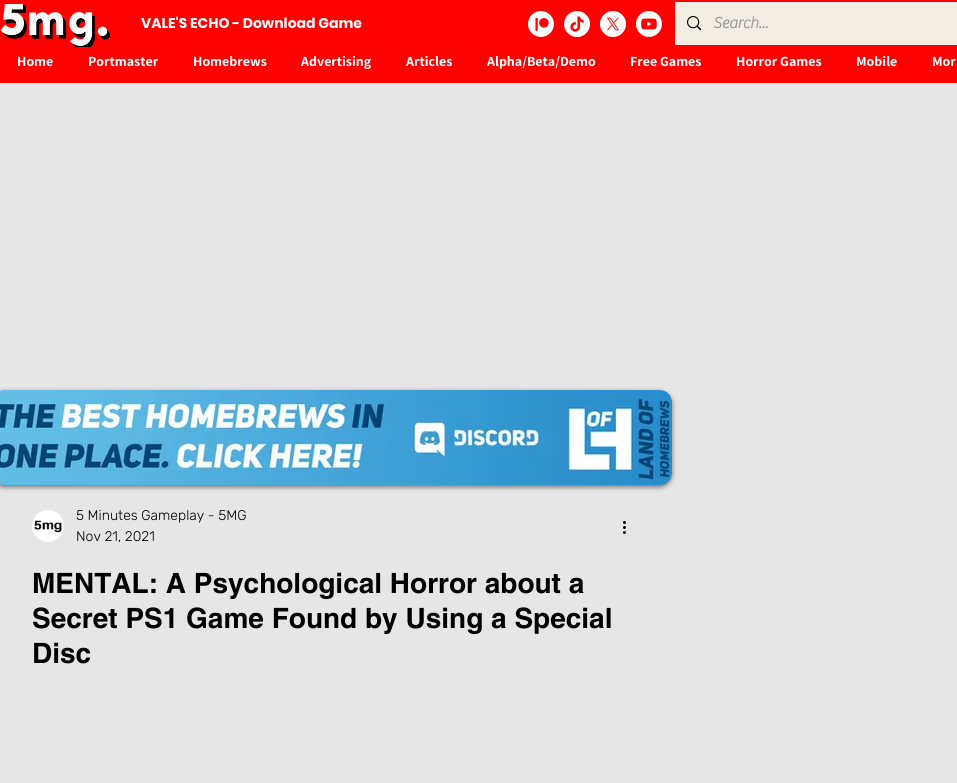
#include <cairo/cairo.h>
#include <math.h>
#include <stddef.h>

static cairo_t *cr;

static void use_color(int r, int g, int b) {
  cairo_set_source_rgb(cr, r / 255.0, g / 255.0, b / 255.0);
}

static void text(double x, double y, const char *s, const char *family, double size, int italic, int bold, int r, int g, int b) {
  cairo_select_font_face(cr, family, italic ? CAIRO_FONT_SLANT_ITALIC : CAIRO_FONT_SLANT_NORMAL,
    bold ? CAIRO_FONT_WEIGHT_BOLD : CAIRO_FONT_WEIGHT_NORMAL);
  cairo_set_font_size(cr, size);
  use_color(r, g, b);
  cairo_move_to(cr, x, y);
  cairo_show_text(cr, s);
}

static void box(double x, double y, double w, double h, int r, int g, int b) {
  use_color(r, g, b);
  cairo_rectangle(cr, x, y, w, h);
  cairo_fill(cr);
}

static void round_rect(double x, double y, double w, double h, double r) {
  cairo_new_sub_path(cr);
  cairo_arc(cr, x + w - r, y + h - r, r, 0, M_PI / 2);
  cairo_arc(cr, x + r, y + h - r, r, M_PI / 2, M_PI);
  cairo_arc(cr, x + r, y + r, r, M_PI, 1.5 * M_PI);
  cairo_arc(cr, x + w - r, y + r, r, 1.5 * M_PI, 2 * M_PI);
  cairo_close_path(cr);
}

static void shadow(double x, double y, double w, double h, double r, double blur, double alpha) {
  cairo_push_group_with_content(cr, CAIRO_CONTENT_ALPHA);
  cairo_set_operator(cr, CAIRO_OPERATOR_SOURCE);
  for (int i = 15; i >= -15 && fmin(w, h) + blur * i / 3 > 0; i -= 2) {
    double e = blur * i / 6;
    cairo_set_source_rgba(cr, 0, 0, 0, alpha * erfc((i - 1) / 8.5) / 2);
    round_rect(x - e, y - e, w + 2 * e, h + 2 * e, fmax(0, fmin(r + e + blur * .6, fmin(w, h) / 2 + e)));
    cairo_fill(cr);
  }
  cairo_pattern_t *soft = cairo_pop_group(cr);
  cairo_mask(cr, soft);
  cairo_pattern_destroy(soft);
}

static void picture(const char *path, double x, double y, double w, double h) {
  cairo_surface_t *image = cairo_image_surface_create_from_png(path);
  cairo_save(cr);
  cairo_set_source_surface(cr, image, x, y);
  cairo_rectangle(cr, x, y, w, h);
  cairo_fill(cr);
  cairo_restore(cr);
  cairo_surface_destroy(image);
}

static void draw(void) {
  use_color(230, 230, 230);
  cairo_paint(cr);
  box(0, 0, 957, 83, 255, 0, 0);
  picture("img_01.png", 0, 4, 110, 43);
  picture("img_02.png", 528, 11, 26, 26);
  picture("img_03.png", 564, 11, 26, 26);
  picture("img_04.png", 600, 11, 26, 26);
  picture("img_05.png", 636, 11, 26, 26);
  box(675, 2, 282, 43, 242, 238, 228);
  picture("img_06.png", 687, 16, 14, 15);
  use_color(0, 0, 0);
  shadow(-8, 392, 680, 95, 12, 2.5, 0.53);
  picture("img_07.png", 0, 390, 672, 95);
  picture("img_08.png", 32, 510, 32, 32);
  picture("img_09.png", 623, 521, 3, 13);
  text(141, 28, "VALE'S ECHO - Download Game", "Poppins", 14, 0, 1, 255, 255, 255);
  text(713, 28, "Search...", "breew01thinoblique", 16, 0, 1, 153, 153, 153);
  text(17, 66, "Home", "Assistant", 14, 0, 1, 255, 255, 255);
  text(88, 66, "Portmaster", "Assistant", 14, 0, 1, 255, 255, 255);
  text(193, 66, "Homebrews", "Assistant", 14, 0, 1, 255, 255, 255);
  text(301, 66, "Advertising", "Assistant", 14, 0, 1, 255, 255, 255);
  text(406, 66, "Articles", "Assistant", 14, 0, 1, 255, 255, 255);
  text(487, 66, "Alpha/Beta/Demo", "Assistant", 14, 0, 1, 255, 255, 255);
  text(630, 66, "Free Games", "Assistant", 14, 0, 1, 255, 255, 255);
  text(736, 66, "Horror Games", "Assistant", 14, 0, 1, 255, 255, 255);
  text(856, 66, "Mobile", "Assistant", 14, 0, 1, 255, 255, 255);
  text(932, 66, "Mor", "Assistant", 14, 0, 1, 255, 255, 255);
  text(76, 520, "5 Minutes Gameplay - 5MG", "Rubik Light", 14, 0, 0, 0, 0, 0);
  text(76, 541, "Nov 21, 2021", "Rubik Light", 14, 0, 0, 0, 0, 0);
  text(32, 593, "MENTAL: A Psychological Horror about a", "helvetica", 28, 0, 1, 0, 0, 0);
  text(32, 628, "Secret PS1 Game Found by Using a Special", "helvetica", 28, 0, 1, 0, 0, 0);
  text(32, 663, "Disc", "helvetica", 28, 0, 1, 0, 0, 0);
}

int main(void) {
  cairo_surface_t *surface = cairo_image_surface_create(CAIRO_FORMAT_RGB24, 957, 783);
  cr = cairo_create(surface);
  cairo_font_options_t *options = cairo_font_options_create();
  cairo_font_options_set_hint_metrics(options, CAIRO_HINT_METRICS_OFF);
  cairo_font_options_set_hint_style(options, CAIRO_HINT_STYLE_NONE);
  cairo_set_font_options(cr, options);
  cairo_set_miter_limit(cr, 4);
  draw();
  cairo_surface_write_to_png(surface, "out.png");
  cairo_font_options_destroy(options);
  cairo_destroy(cr);
  cairo_surface_destroy(surface);
  return 0;
}
